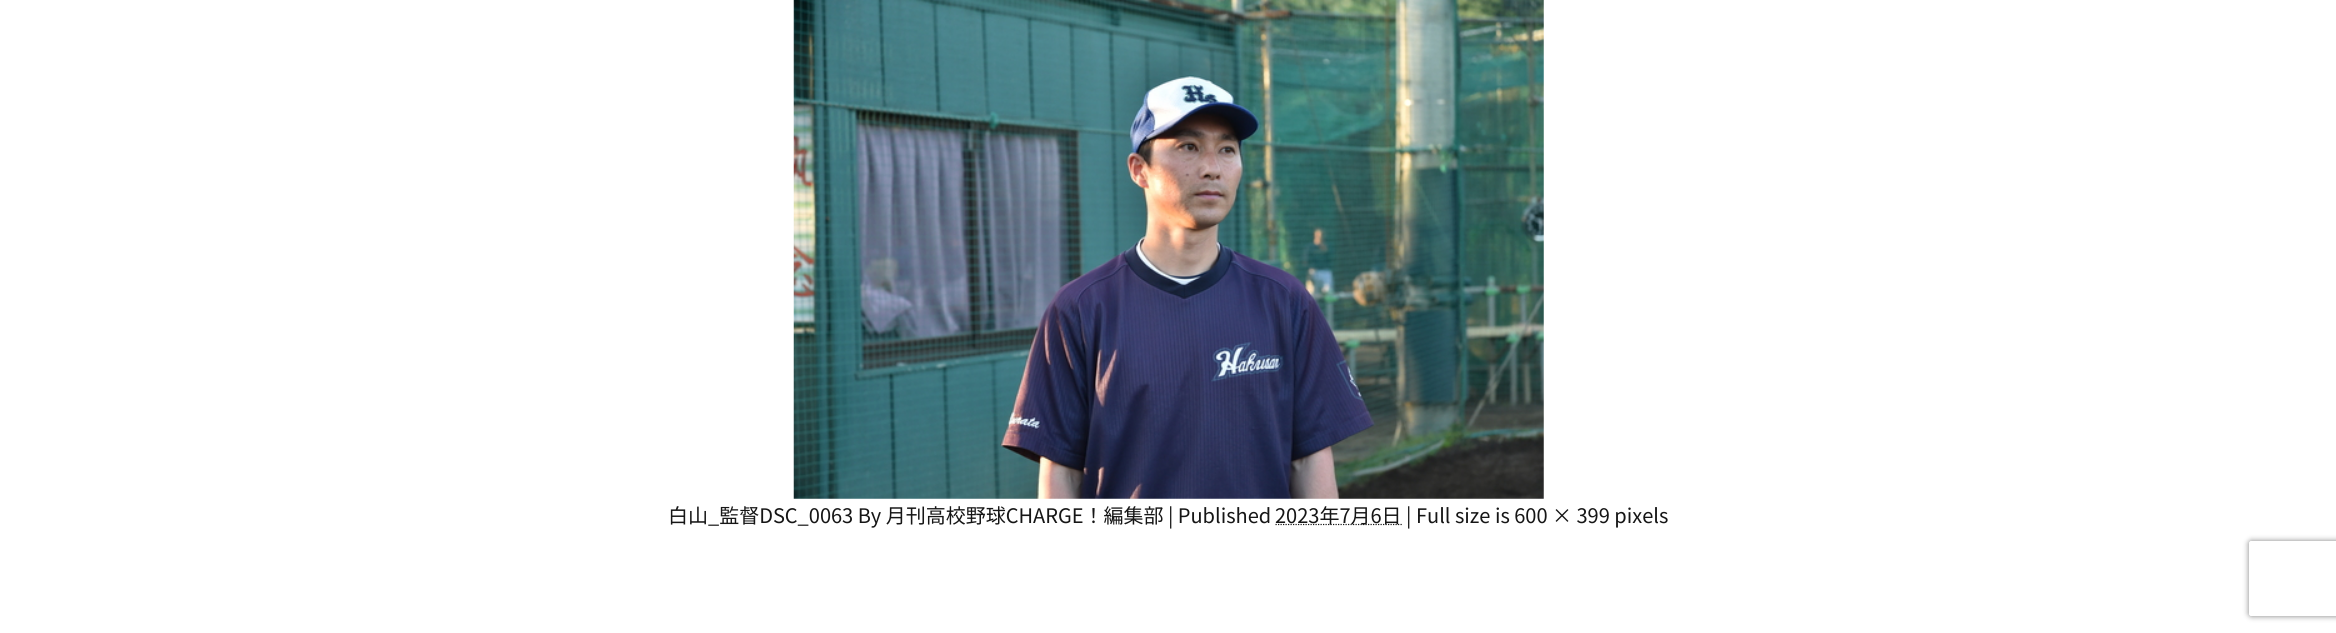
#include <cairo/cairo.h>
#include <math.h>
#include <stddef.h>

static cairo_t *cr;

static void use_color(int r, int g, int b) {
  cairo_set_source_rgb(cr, r / 255.0, g / 255.0, b / 255.0);
}

static void text(double x, double y, const char *s, const char *family, double size, int italic, int bold, int r, int g, int b) {
  cairo_select_font_face(cr, family, italic ? CAIRO_FONT_SLANT_ITALIC : CAIRO_FONT_SLANT_NORMAL,
    bold ? CAIRO_FONT_WEIGHT_BOLD : CAIRO_FONT_WEIGHT_NORMAL);
  cairo_set_font_size(cr, size);
  use_color(r, g, b);
  cairo_move_to(cr, x, y);
  cairo_show_text(cr, s);
}

static void round_rect(double x, double y, double w, double h, double r) {
  cairo_new_sub_path(cr);
  cairo_arc(cr, x + w - r, y + h - r, r, 0, M_PI / 2);
  cairo_arc(cr, x + r, y + h - r, r, M_PI / 2, M_PI);
  cairo_arc(cr, x + r, y + r, r, M_PI, 1.5 * M_PI);
  cairo_arc(cr, x + w - r, y + r, r, 1.5 * M_PI, 2 * M_PI);
  cairo_close_path(cr);
}

static void shadow(double x, double y, double w, double h, double r, double blur, double alpha) {
  cairo_push_group_with_content(cr, CAIRO_CONTENT_ALPHA);
  cairo_set_operator(cr, CAIRO_OPERATOR_SOURCE);
  for (int i = 15; i >= -15 && fmin(w, h) + blur * i / 3 > 0; i -= 2) {
    double e = blur * i / 6;
    cairo_set_source_rgba(cr, 0, 0, 0, alpha * erfc((i - 1) / 8.5) / 2);
    round_rect(x - e, y - e, w + 2 * e, h + 2 * e, fmax(0, fmin(r + e + blur * .6, fmin(w, h) / 2 + e)));
    cairo_fill(cr);
  }
  cairo_pattern_t *soft = cairo_pop_group(cr);
  cairo_mask(cr, soft);
  cairo_pattern_destroy(soft);
}

static void picture(const char *path, double x, double y, double w, double h) {
  cairo_surface_t *image = cairo_image_surface_create_from_png(path);
  cairo_save(cr);
  cairo_set_source_surface(cr, image, x, y);
  cairo_rectangle(cr, x, y, w, h);
  cairo_fill(cr);
  cairo_restore(cr);
  cairo_surface_destroy(image);
}

static void draw(void) {
  use_color(255, 255, 255);
  cairo_paint(cr);
  picture("img_01.png", 793, 0, 751, 499);
  cairo_new_path(cr);
  cairo_move_to(cr, 1275.5, 524.5);
  cairo_line_to(cr, 1402, 524.5);
  use_color(22, 22, 22);
  cairo_set_line_width(cr, 1.2);
  cairo_set_dash(cr, (double[]){1.25, 1.25}, 2, 0);
  cairo_stroke(cr);
  cairo_save(cr);
  cairo_set_fill_rule(cr, CAIRO_FILL_RULE_EVEN_ODD);
  cairo_new_path(cr);
  cairo_move_to(cr, 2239, 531);
  cairo_line_to(cr, 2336, 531);
  cairo_line_to(cr, 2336, 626);
  cairo_line_to(cr, 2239, 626);
  cairo_close_path(cr);
  cairo_move_to(cr, 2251.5, 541);
  cairo_line_to(cr, 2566.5, 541);
  cairo_curve_to(cr, 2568, 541, 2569, 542, 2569, 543.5);
  cairo_line_to(cr, 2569, 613.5);
  cairo_curve_to(cr, 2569, 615, 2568, 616, 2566.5, 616);
  cairo_line_to(cr, 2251.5, 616);
  cairo_curve_to(cr, 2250, 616, 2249, 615, 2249, 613.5);
  cairo_line_to(cr, 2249, 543.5);
  cairo_curve_to(cr, 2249, 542, 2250, 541, 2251.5, 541);
  cairo_close_path(cr);
  cairo_clip(cr);
  use_color(128, 128, 128);
  shadow(2249, 541, 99, 75, 2.5, 3, 1);
  cairo_restore(cr);
  text(668, 523, "白山_監督DSC_0063 By 月刊高校野球CHARGE！編集部 | Published", "Noto Sans JP", 20, 0, 0, 22, 22, 22);
  text(1275, 523, "2023年7月6日 | Full size is 600 × 399 pixels", "Noto Sans JP", 20, 0, 0, 22, 22, 22);
}

int main(void) {
  cairo_surface_t *surface = cairo_image_surface_create(CAIRO_FORMAT_RGB24, 2336, 633);
  cr = cairo_create(surface);
  cairo_font_options_t *options = cairo_font_options_create();
  cairo_font_options_set_hint_metrics(options, CAIRO_HINT_METRICS_OFF);
  cairo_font_options_set_hint_style(options, CAIRO_HINT_STYLE_NONE);
  cairo_set_font_options(cr, options);
  cairo_set_miter_limit(cr, 4);
  draw();
  cairo_surface_write_to_png(surface, "out.png");
  cairo_font_options_destroy(options);
  cairo_destroy(cr);
  cairo_surface_destroy(surface);
  return 0;
}
